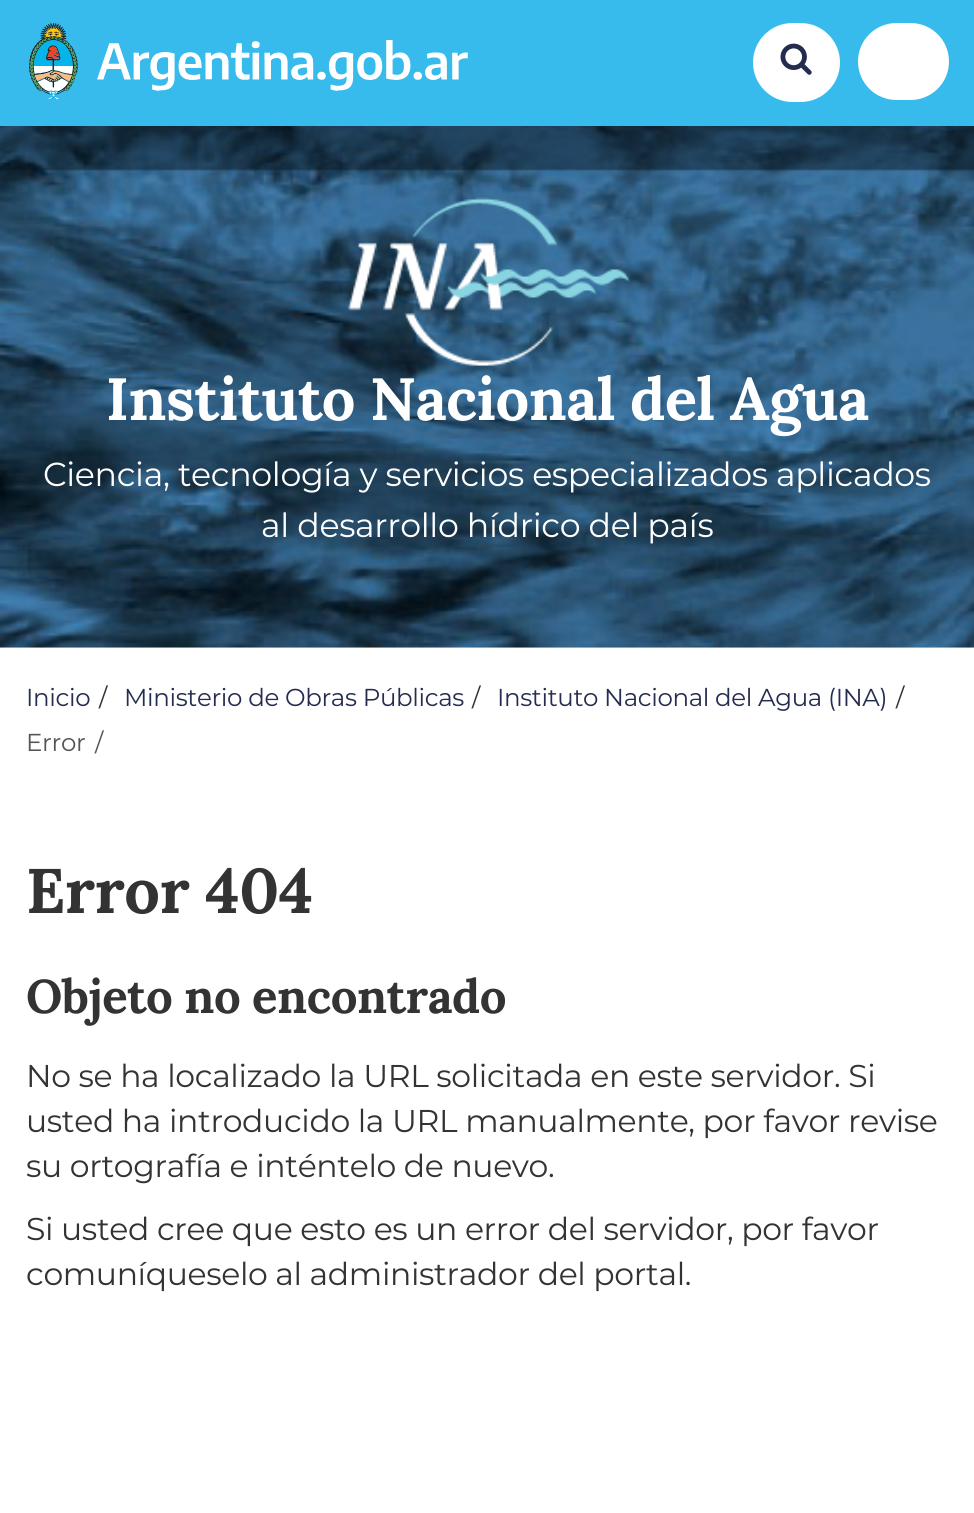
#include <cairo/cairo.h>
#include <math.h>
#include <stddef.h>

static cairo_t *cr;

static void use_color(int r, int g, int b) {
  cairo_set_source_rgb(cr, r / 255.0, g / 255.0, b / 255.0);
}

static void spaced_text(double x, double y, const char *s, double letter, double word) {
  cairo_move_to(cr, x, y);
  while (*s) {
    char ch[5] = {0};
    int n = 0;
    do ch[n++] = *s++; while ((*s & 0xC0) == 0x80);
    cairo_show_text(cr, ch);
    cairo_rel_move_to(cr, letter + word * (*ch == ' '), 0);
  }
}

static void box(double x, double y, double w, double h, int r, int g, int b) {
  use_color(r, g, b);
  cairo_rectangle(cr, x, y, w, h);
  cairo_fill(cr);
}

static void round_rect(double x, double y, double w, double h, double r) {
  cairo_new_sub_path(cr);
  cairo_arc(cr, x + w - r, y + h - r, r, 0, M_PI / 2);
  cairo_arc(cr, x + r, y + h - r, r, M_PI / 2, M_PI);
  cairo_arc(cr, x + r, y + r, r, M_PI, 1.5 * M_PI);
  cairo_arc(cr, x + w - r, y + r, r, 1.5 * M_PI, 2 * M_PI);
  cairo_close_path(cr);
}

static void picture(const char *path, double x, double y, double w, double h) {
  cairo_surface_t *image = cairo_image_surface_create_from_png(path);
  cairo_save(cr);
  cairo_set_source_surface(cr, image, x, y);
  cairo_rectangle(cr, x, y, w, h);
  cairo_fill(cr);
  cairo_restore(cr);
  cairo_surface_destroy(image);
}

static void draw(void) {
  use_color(255, 255, 255);
  cairo_paint(cr);
  box(0, 0, 974, 126, 55, 187, 237);
  picture("img_01.png", 29, 23, 439, 77);
  use_color(255, 255, 255);
  round_rect(753, 23, 87, 79, 39.5);
  cairo_fill(cr);
  picture("img_02.png", 780, 43, 32, 32);
  round_rect(858, 23, 91, 77, 38.5);
  cairo_fill(cr);
  box(0, 647, 974, 1, 238, 238, 238);
  picture("img_03.png", 0, 126, 974, 522);
  picture("img_04.png", 347, 197, 283, 169);
  cairo_select_font_face(cr, "Lora", CAIRO_FONT_SLANT_NORMAL, CAIRO_FONT_WEIGHT_BOLD);
  cairo_set_font_size(cr, 59.5);
  use_color(255, 255, 255);
  spaced_text(106, 420, "Instituto Nacional del Agua", -0.5, 0);
  cairo_select_font_face(cr, "Montserrat", CAIRO_FONT_SLANT_NORMAL, CAIRO_FONT_WEIGHT_NORMAL);
  cairo_set_font_size(cr, 33.25);
  spaced_text(43, 486, "Ciencia, tecnología y servicios especializados aplicados", -0.35, 0);
  spaced_text(261, 537, "al desarrollo hídrico del país", -0.35, 0);
  cairo_set_font_size(cr, 24.5);
  use_color(36, 44, 79);
  spaced_text(26, 706, "Inicio", -0.35, 0);
  use_color(51, 51, 51);
  spaced_text(99, 706, "/", -0.35, 0);
  use_color(36, 44, 79);
  spaced_text(124, 706, "Ministerio de Obras Públicas", -0.35, 0);
  use_color(51, 51, 51);
  spaced_text(472, 706, "/", -0.35, 0);
  use_color(36, 44, 79);
  spaced_text(497, 706, "Instituto Nacional del Agua (INA)", -0.35, 0);
  use_color(51, 51, 51);
  spaced_text(896, 706, "/", -0.35, 0);
  use_color(85, 85, 85);
  spaced_text(26, 751, "Error", -0.35, 0);
  spaced_text(95, 751, "/", -0.35, 0);
  cairo_select_font_face(cr, "Lora", CAIRO_FONT_SLANT_NORMAL, CAIRO_FONT_WEIGHT_BOLD);
  cairo_set_font_size(cr, 63);
  use_color(51, 51, 51);
  spaced_text(26, 913, "Error 404", -0.5, 0);
  cairo_set_font_size(cr, 47.25);
  spaced_text(26, 1013, "Objeto no encontrado", -0.5, 0);
  cairo_select_font_face(cr, "Montserrat", CAIRO_FONT_SLANT_NORMAL, CAIRO_FONT_WEIGHT_NORMAL);
  cairo_set_font_size(cr, 31.5);
  spaced_text(26, 1087, "No se ha localizado la URL solicitada en este servidor. Si", -0.35, 0);
  spaced_text(26, 1132, "usted ha introducido la URL manualmente, por favor revise", -0.35, 0);
  spaced_text(26, 1177, "su ortografía e inténtelo de nuevo.", -0.35, 0);
  spaced_text(26, 1240, "Si usted cree que esto es un error del servidor, por favor", -0.35, 0);
  spaced_text(26, 1285, "comuníqueselo al administrador del portal.", -0.35, 0);
}

int main(void) {
  cairo_surface_t *surface = cairo_image_surface_create(CAIRO_FORMAT_RGB24, 974, 1513);
  cr = cairo_create(surface);
  cairo_font_options_t *options = cairo_font_options_create();
  cairo_font_options_set_hint_metrics(options, CAIRO_HINT_METRICS_OFF);
  cairo_font_options_set_hint_style(options, CAIRO_HINT_STYLE_NONE);
  cairo_set_font_options(cr, options);
  cairo_set_miter_limit(cr, 4);
  draw();
  cairo_surface_write_to_png(surface, "out.png");
  cairo_font_options_destroy(options);
  cairo_destroy(cr);
  cairo_surface_destroy(surface);
  return 0;
}
